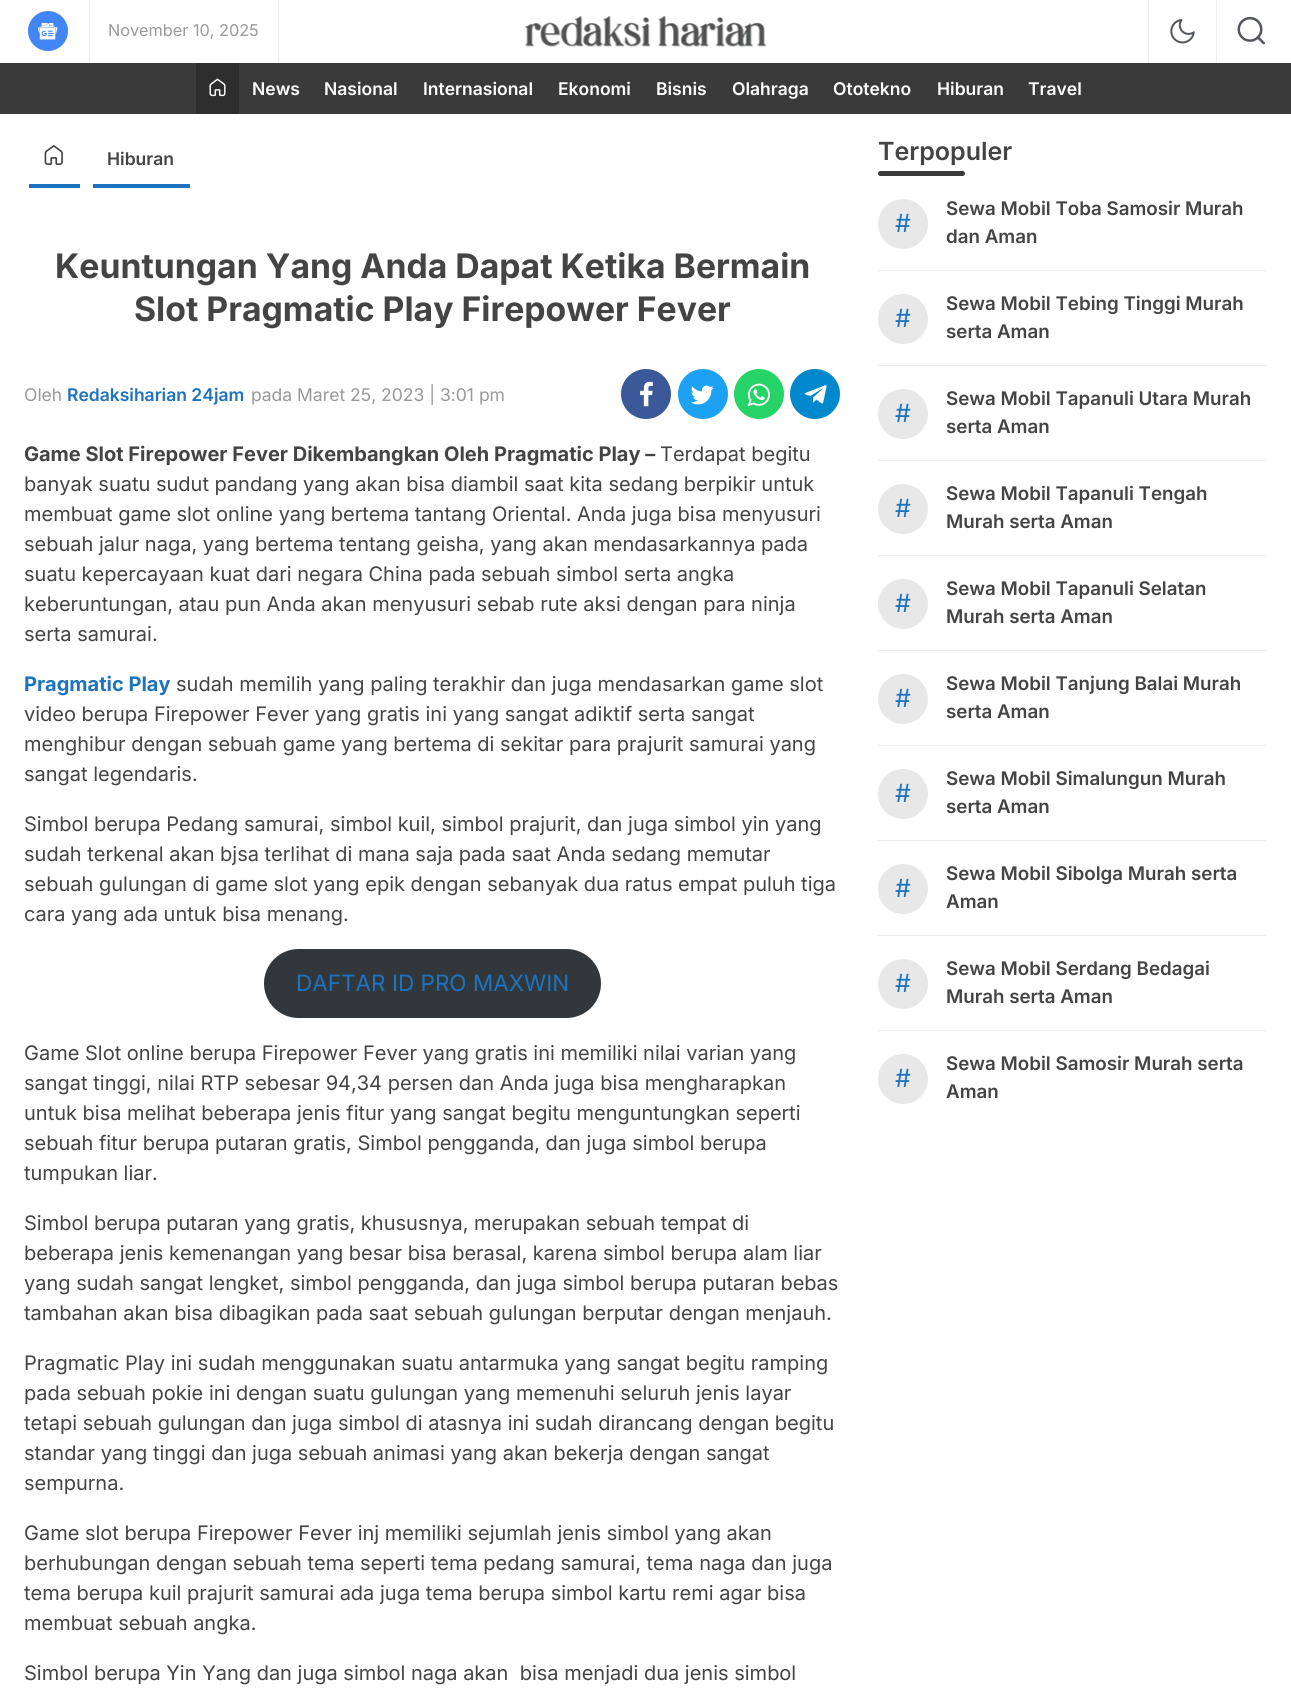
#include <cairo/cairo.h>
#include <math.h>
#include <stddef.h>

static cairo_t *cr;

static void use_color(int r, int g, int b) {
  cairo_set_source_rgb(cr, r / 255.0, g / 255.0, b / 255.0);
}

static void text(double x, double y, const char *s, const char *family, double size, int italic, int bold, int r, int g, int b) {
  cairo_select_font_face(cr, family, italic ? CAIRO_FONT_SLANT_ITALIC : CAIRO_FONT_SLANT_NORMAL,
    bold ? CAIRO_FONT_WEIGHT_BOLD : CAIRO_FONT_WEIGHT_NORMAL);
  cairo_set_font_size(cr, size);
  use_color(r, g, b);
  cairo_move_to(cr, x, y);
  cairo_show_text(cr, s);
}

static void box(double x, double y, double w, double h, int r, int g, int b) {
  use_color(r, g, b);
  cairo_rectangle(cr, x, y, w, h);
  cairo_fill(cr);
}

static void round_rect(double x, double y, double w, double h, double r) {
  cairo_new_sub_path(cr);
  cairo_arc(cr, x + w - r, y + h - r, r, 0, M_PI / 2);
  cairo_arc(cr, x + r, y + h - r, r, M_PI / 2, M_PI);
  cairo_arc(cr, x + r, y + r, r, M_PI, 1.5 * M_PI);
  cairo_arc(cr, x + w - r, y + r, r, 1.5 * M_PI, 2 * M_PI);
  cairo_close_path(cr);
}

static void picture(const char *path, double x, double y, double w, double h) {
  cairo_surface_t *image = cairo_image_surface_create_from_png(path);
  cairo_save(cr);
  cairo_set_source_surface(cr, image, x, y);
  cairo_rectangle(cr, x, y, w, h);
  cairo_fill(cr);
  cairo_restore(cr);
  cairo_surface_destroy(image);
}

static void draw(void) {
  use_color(255, 255, 255);
  cairo_paint(cr);
  box(89, 0, 1, 63, 238, 238, 238);
  use_color(66, 133, 244);
  cairo_arc(cr, 48, 31, 20, 0, 2 * M_PI);
  cairo_fill(cr);
  picture("img_01.png", 38, 23, 20, 17);
  box(278, 0, 1, 63, 238, 238, 238);
  picture("img_02.png", 525, 16, 242, 32);
  box(1216, 0, 1, 63, 238, 238, 238);
  box(1148, 0, 1, 63, 238, 238, 238);
  picture("img_03.png", 1170, 19, 25, 25);
  picture("img_04.png", 1237, 16, 28, 29);
  box(0, 63, 1291, 51, 58, 58, 58);
  box(196, 63, 43, 51, 46, 46, 46);
  picture("img_05.png", 209, 78, 17, 19);
  box(29, 184, 51, 4, 30, 115, 190);
  picture("img_06.png", 44, 145, 19, 20);
  box(93, 184, 97, 4, 30, 115, 190);
  use_color(59, 89, 152);
  cairo_arc(cr, 646, 394, 25, 0, 2 * M_PI);
  cairo_fill(cr);
  picture("img_07.png", 640, 381, 13, 26);
  use_color(29, 161, 242);
  cairo_arc(cr, 703, 394, 25, 0, 2 * M_PI);
  cairo_fill(cr);
  picture("img_08.png", 690, 385, 24, 20);
  use_color(37, 211, 102);
  cairo_arc(cr, 759, 394, 25, 0, 2 * M_PI);
  cairo_fill(cr);
  picture("img_09.png", 747, 383, 23, 24);
  use_color(0, 136, 204);
  cairo_arc(cr, 815, 394, 25, 0, 2 * M_PI);
  cairo_fill(cr);
  picture("img_10.png", 804, 385, 23, 19);
  use_color(50, 55, 60);
  round_rect(264, 949, 337, 69, 34.5);
  cairo_fill(cr);
  use_color(58, 58, 58);
  round_rect(878, 171, 87, 5, 2.5);
  cairo_fill(cr);
  box(878, 270, 388, 1, 238, 238, 238);
  use_color(232, 232, 232);
  cairo_arc(cr, 903, 224, 25, 0, 2 * M_PI);
  cairo_fill(cr);
  box(878, 365, 388, 1, 238, 238, 238);
  use_color(232, 232, 232);
  cairo_arc(cr, 903, 319, 25, 0, 2 * M_PI);
  cairo_fill(cr);
  box(878, 460, 388, 1, 238, 238, 238);
  use_color(232, 232, 232);
  cairo_arc(cr, 903, 414, 25, 0, 2 * M_PI);
  cairo_fill(cr);
  box(878, 555, 388, 1, 238, 238, 238);
  use_color(232, 232, 232);
  cairo_arc(cr, 903, 509, 25, 0, 2 * M_PI);
  cairo_fill(cr);
  box(878, 650, 388, 1, 238, 238, 238);
  use_color(232, 232, 232);
  cairo_arc(cr, 903, 604, 25, 0, 2 * M_PI);
  cairo_fill(cr);
  box(878, 745, 388, 1, 238, 238, 238);
  use_color(232, 232, 232);
  cairo_arc(cr, 903, 699, 25, 0, 2 * M_PI);
  cairo_fill(cr);
  box(878, 840, 388, 1, 238, 238, 238);
  use_color(232, 232, 232);
  cairo_arc(cr, 903, 794, 25, 0, 2 * M_PI);
  cairo_fill(cr);
  box(878, 935, 388, 1, 238, 238, 238);
  use_color(232, 232, 232);
  cairo_arc(cr, 903, 889, 25, 0, 2 * M_PI);
  cairo_fill(cr);
  box(878, 1030, 388, 1, 238, 238, 238);
  use_color(232, 232, 232);
  cairo_arc(cr, 903, 984, 25, 0, 2 * M_PI);
  cairo_fill(cr);
  cairo_arc(cr, 903, 1079, 25, 0, 2 * M_PI);
  cairo_fill(cr);
  text(108, 36, "November 10, 2025", "Inter", 16.25, 0, 0, 153, 153, 153);
  text(252, 95, "News", "Inter SemiBold", 17.5, 0, 0, 255, 255, 255);
  text(324, 95, "Nasional", "Inter SemiBold", 17.5, 0, 0, 255, 255, 255);
  text(423, 95, "Internasional", "Inter SemiBold", 17.5, 0, 0, 255, 255, 255);
  text(558, 95, "Ekonomi", "Inter SemiBold", 17.5, 0, 0, 255, 255, 255);
  text(656, 95, "Bisnis", "Inter SemiBold", 17.5, 0, 0, 255, 255, 255);
  text(732, 95, "Olahraga", "Inter SemiBold", 17.5, 0, 0, 255, 255, 255);
  text(833, 95, "Ototekno", "Inter SemiBold", 17.5, 0, 0, 255, 255, 255);
  text(937, 95, "Hiburan", "Inter SemiBold", 17.5, 0, 0, 255, 255, 255);
  text(1028, 95, "Travel", "Inter SemiBold", 17.5, 0, 0, 255, 255, 255);
  text(107, 165, "Hiburan", "Inter SemiBold", 17.5, 0, 0, 68, 68, 68);
  text(55, 278, "Keuntungan Yang Anda Dapat Ketika Bermain", "Inter", 33.75, 0, 1, 68, 68, 68);
  text(134, 321, "Slot Pragmatic Play Firepower Fever", "Inter", 33.75, 0, 1, 68, 68, 68);
  text(24, 401, "Oleh", "Inter", 17.5, 0, 0, 153, 153, 153);
  text(67, 401, "Redaksiharian 24jam", "Inter SemiBold", 17.5, 0, 0, 30, 115, 190);
  text(251, 401, "pada Maret 25, 2023 | 3:01 pm", "Inter", 17.5, 0, 0, 153, 153, 153);
  text(24, 461, "Game Slot Firepower Fever Dikembangkan Oleh Pragmatic Play –", "Inter", 20, 0, 1, 68, 68, 68);
  text(660, 461, "Terdapat begitu", "Inter", 20, 0, 0, 68, 68, 68);
  text(24, 491, "banyak suatu sudut pandang yang akan bisa diambil saat kita sedang berpikir untuk", "Inter", 20, 0, 0, 68, 68, 68);
  text(24, 521, "membuat game slot online yang bertema tantang Oriental. Anda juga bisa menyusuri", "Inter", 20, 0, 0, 68, 68, 68);
  text(24, 551, "sebuah jalur naga, yang bertema tentang geisha, yang akan mendasarkannya pada", "Inter", 20, 0, 0, 68, 68, 68);
  text(24, 581, "suatu kepercayaan kuat dari negara China pada sebuah simbol serta angka", "Inter", 20, 0, 0, 68, 68, 68);
  text(24, 611, "keberuntungan, atau pun Anda akan menyusuri sebab rute aksi dengan para ninja", "Inter", 20, 0, 0, 68, 68, 68);
  text(24, 641, "serta samurai.", "Inter", 20, 0, 0, 68, 68, 68);
  text(24, 691, "Pragmatic Play", "Inter", 20, 0, 1, 30, 115, 190);
  text(176, 691, "sudah memilih yang paling terakhir dan juga mendasarkan game slot", "Inter", 20, 0, 0, 68, 68, 68);
  text(24, 721, "video berupa Firepower Fever yang gratis ini yang sangat adiktif serta sangat", "Inter", 20, 0, 0, 68, 68, 68);
  text(24, 751, "menghibur dengan sebuah game yang bertema di sekitar para prajurit samurai yang", "Inter", 20, 0, 0, 68, 68, 68);
  text(24, 781, "sangat legendaris.", "Inter", 20, 0, 0, 68, 68, 68);
  text(24, 831, "Simbol berupa Pedang samurai, simbol kuil, simbol prajurit, dan juga simbol yin yang", "Inter", 20, 0, 0, 68, 68, 68);
  text(24, 861, "sudah terkenal akan bjsa terlihat di mana saja pada saat Anda sedang memutar", "Inter", 20, 0, 0, 68, 68, 68);
  text(24, 891, "sebuah gulungan di game slot yang epik dengan sebanyak dua ratus empat puluh tiga", "Inter", 20, 0, 0, 68, 68, 68);
  text(24, 921, "cara yang ada untuk bisa menang.", "Inter", 20, 0, 0, 68, 68, 68);
  text(296, 991, "DAFTAR ID PRO MAXWIN", "Inter", 22.5, 0, 0, 30, 115, 190);
  text(24, 1060, "Game Slot online berupa Firepower Fever yang gratis ini memiliki nilai varian yang", "Inter", 20, 0, 0, 68, 68, 68);
  text(24, 1090, "sangat tinggi, nilai RTP sebesar 94,34 persen dan Anda juga bisa mengharapkan", "Inter", 20, 0, 0, 68, 68, 68);
  text(24, 1120, "untuk bisa melihat beberapa jenis fitur yang sangat begitu menguntungkan seperti", "Inter", 20, 0, 0, 68, 68, 68);
  text(24, 1150, "sebuah fitur berupa putaran gratis, Simbol pengganda, dan juga simbol berupa", "Inter", 20, 0, 0, 68, 68, 68);
  text(24, 1180, "tumpukan liar.", "Inter", 20, 0, 0, 68, 68, 68);
  text(24, 1230, "Simbol berupa putaran yang gratis, khususnya, merupakan sebuah tempat di", "Inter", 20, 0, 0, 68, 68, 68);
  text(24, 1260, "beberapa jenis kemenangan yang besar bisa berasal, karena simbol berupa alam liar", "Inter", 20, 0, 0, 68, 68, 68);
  text(24, 1290, "yang sudah sangat lengket, simbol pengganda, dan juga simbol berupa putaran bebas", "Inter", 20, 0, 0, 68, 68, 68);
  text(24, 1320, "tambahan akan bisa dibagikan pada saat sebuah gulungan berputar dengan menjauh.", "Inter", 20, 0, 0, 68, 68, 68);
  text(24, 1370, "Pragmatic Play ini sudah menggunakan suatu antarmuka yang sangat begitu ramping", "Inter", 20, 0, 0, 68, 68, 68);
  text(24, 1400, "pada sebuah pokie ini dengan suatu gulungan yang memenuhi seluruh jenis layar", "Inter", 20, 0, 0, 68, 68, 68);
  text(24, 1430, "tetapi sebuah gulungan dan juga simbol di atasnya ini sudah dirancang dengan begitu", "Inter", 20, 0, 0, 68, 68, 68);
  text(24, 1460, "standar yang tinggi dan juga sebuah animasi yang akan bekerja dengan sangat", "Inter", 20, 0, 0, 68, 68, 68);
  text(24, 1490, "sempurna.", "Inter", 20, 0, 0, 68, 68, 68);
  text(24, 1540, "Game slot berupa Firepower Fever inj memiliki sejumlah jenis simbol yang akan", "Inter", 20, 0, 0, 68, 68, 68);
  text(24, 1570, "berhubungan dengan sebuah tema seperti tema pedang samurai, tema naga dan juga", "Inter", 20, 0, 0, 68, 68, 68);
  text(24, 1600, "tema berupa kuil prajurit samurai ada juga tema berupa simbol kartu remi agar bisa", "Inter", 20, 0, 0, 68, 68, 68);
  text(24, 1630, "membuat sebuah angka.", "Inter", 20, 0, 0, 68, 68, 68);
  text(24, 1680, "Simbol berupa Yin Yang dan juga simbol naga akan  bisa menjadi dua jenis simbol", "Inter", 20, 0, 0, 68, 68, 68);
  text(878, 160, "Terpopuler", "Inter SemiBold", 25, 0, 0, 68, 68, 68);
  text(895, 232, "#", "Inter", 25, 0, 0, 30, 115, 190);
  text(946, 215, "Sewa Mobil Toba Samosir Murah", "Inter SemiBold", 18.75, 0, 0, 68, 68, 68);
  text(946, 243, "dan Aman", "Inter SemiBold", 18.75, 0, 0, 68, 68, 68);
  text(895, 327, "#", "Inter", 25, 0, 0, 30, 115, 190);
  text(946, 310, "Sewa Mobil Tebing Tinggi Murah", "Inter SemiBold", 18.75, 0, 0, 68, 68, 68);
  text(946, 338, "serta Aman", "Inter SemiBold", 18.75, 0, 0, 68, 68, 68);
  text(895, 422, "#", "Inter", 25, 0, 0, 30, 115, 190);
  text(946, 405, "Sewa Mobil Tapanuli Utara Murah", "Inter SemiBold", 18.75, 0, 0, 68, 68, 68);
  text(946, 433, "serta Aman", "Inter SemiBold", 18.75, 0, 0, 68, 68, 68);
  text(895, 517, "#", "Inter", 25, 0, 0, 30, 115, 190);
  text(946, 500, "Sewa Mobil Tapanuli Tengah", "Inter SemiBold", 18.75, 0, 0, 68, 68, 68);
  text(946, 528, "Murah serta Aman", "Inter SemiBold", 18.75, 0, 0, 68, 68, 68);
  text(895, 612, "#", "Inter", 25, 0, 0, 30, 115, 190);
  text(946, 595, "Sewa Mobil Tapanuli Selatan", "Inter SemiBold", 18.75, 0, 0, 68, 68, 68);
  text(946, 623, "Murah serta Aman", "Inter SemiBold", 18.75, 0, 0, 68, 68, 68);
  text(895, 707, "#", "Inter", 25, 0, 0, 30, 115, 190);
  text(946, 690, "Sewa Mobil Tanjung Balai Murah", "Inter SemiBold", 18.75, 0, 0, 68, 68, 68);
  text(946, 718, "serta Aman", "Inter SemiBold", 18.75, 0, 0, 68, 68, 68);
  text(895, 802, "#", "Inter", 25, 0, 0, 30, 115, 190);
  text(946, 785, "Sewa Mobil Simalungun Murah", "Inter SemiBold", 18.75, 0, 0, 68, 68, 68);
  text(946, 813, "serta Aman", "Inter SemiBold", 18.75, 0, 0, 68, 68, 68);
  text(895, 897, "#", "Inter", 25, 0, 0, 30, 115, 190);
  text(946, 880, "Sewa Mobil Sibolga Murah serta", "Inter SemiBold", 18.75, 0, 0, 68, 68, 68);
  text(946, 908, "Aman", "Inter SemiBold", 18.75, 0, 0, 68, 68, 68);
  text(895, 992, "#", "Inter", 25, 0, 0, 30, 115, 190);
  text(946, 975, "Sewa Mobil Serdang Bedagai", "Inter SemiBold", 18.75, 0, 0, 68, 68, 68);
  text(946, 1003, "Murah serta Aman", "Inter SemiBold", 18.75, 0, 0, 68, 68, 68);
  text(895, 1087, "#", "Inter", 25, 0, 0, 30, 115, 190);
  text(946, 1070, "Sewa Mobil Samosir Murah serta", "Inter SemiBold", 18.75, 0, 0, 68, 68, 68);
  text(946, 1098, "Aman", "Inter SemiBold", 18.75, 0, 0, 68, 68, 68);
}

int main(void) {
  cairo_surface_t *surface = cairo_image_surface_create(CAIRO_FORMAT_RGB24, 1291, 1695);
  cr = cairo_create(surface);
  cairo_font_options_t *options = cairo_font_options_create();
  cairo_font_options_set_hint_metrics(options, CAIRO_HINT_METRICS_OFF);
  cairo_font_options_set_hint_style(options, CAIRO_HINT_STYLE_NONE);
  cairo_set_font_options(cr, options);
  cairo_set_miter_limit(cr, 4);
  draw();
  cairo_surface_write_to_png(surface, "out.png");
  cairo_font_options_destroy(options);
  cairo_destroy(cr);
  cairo_surface_destroy(surface);
  return 0;
}
